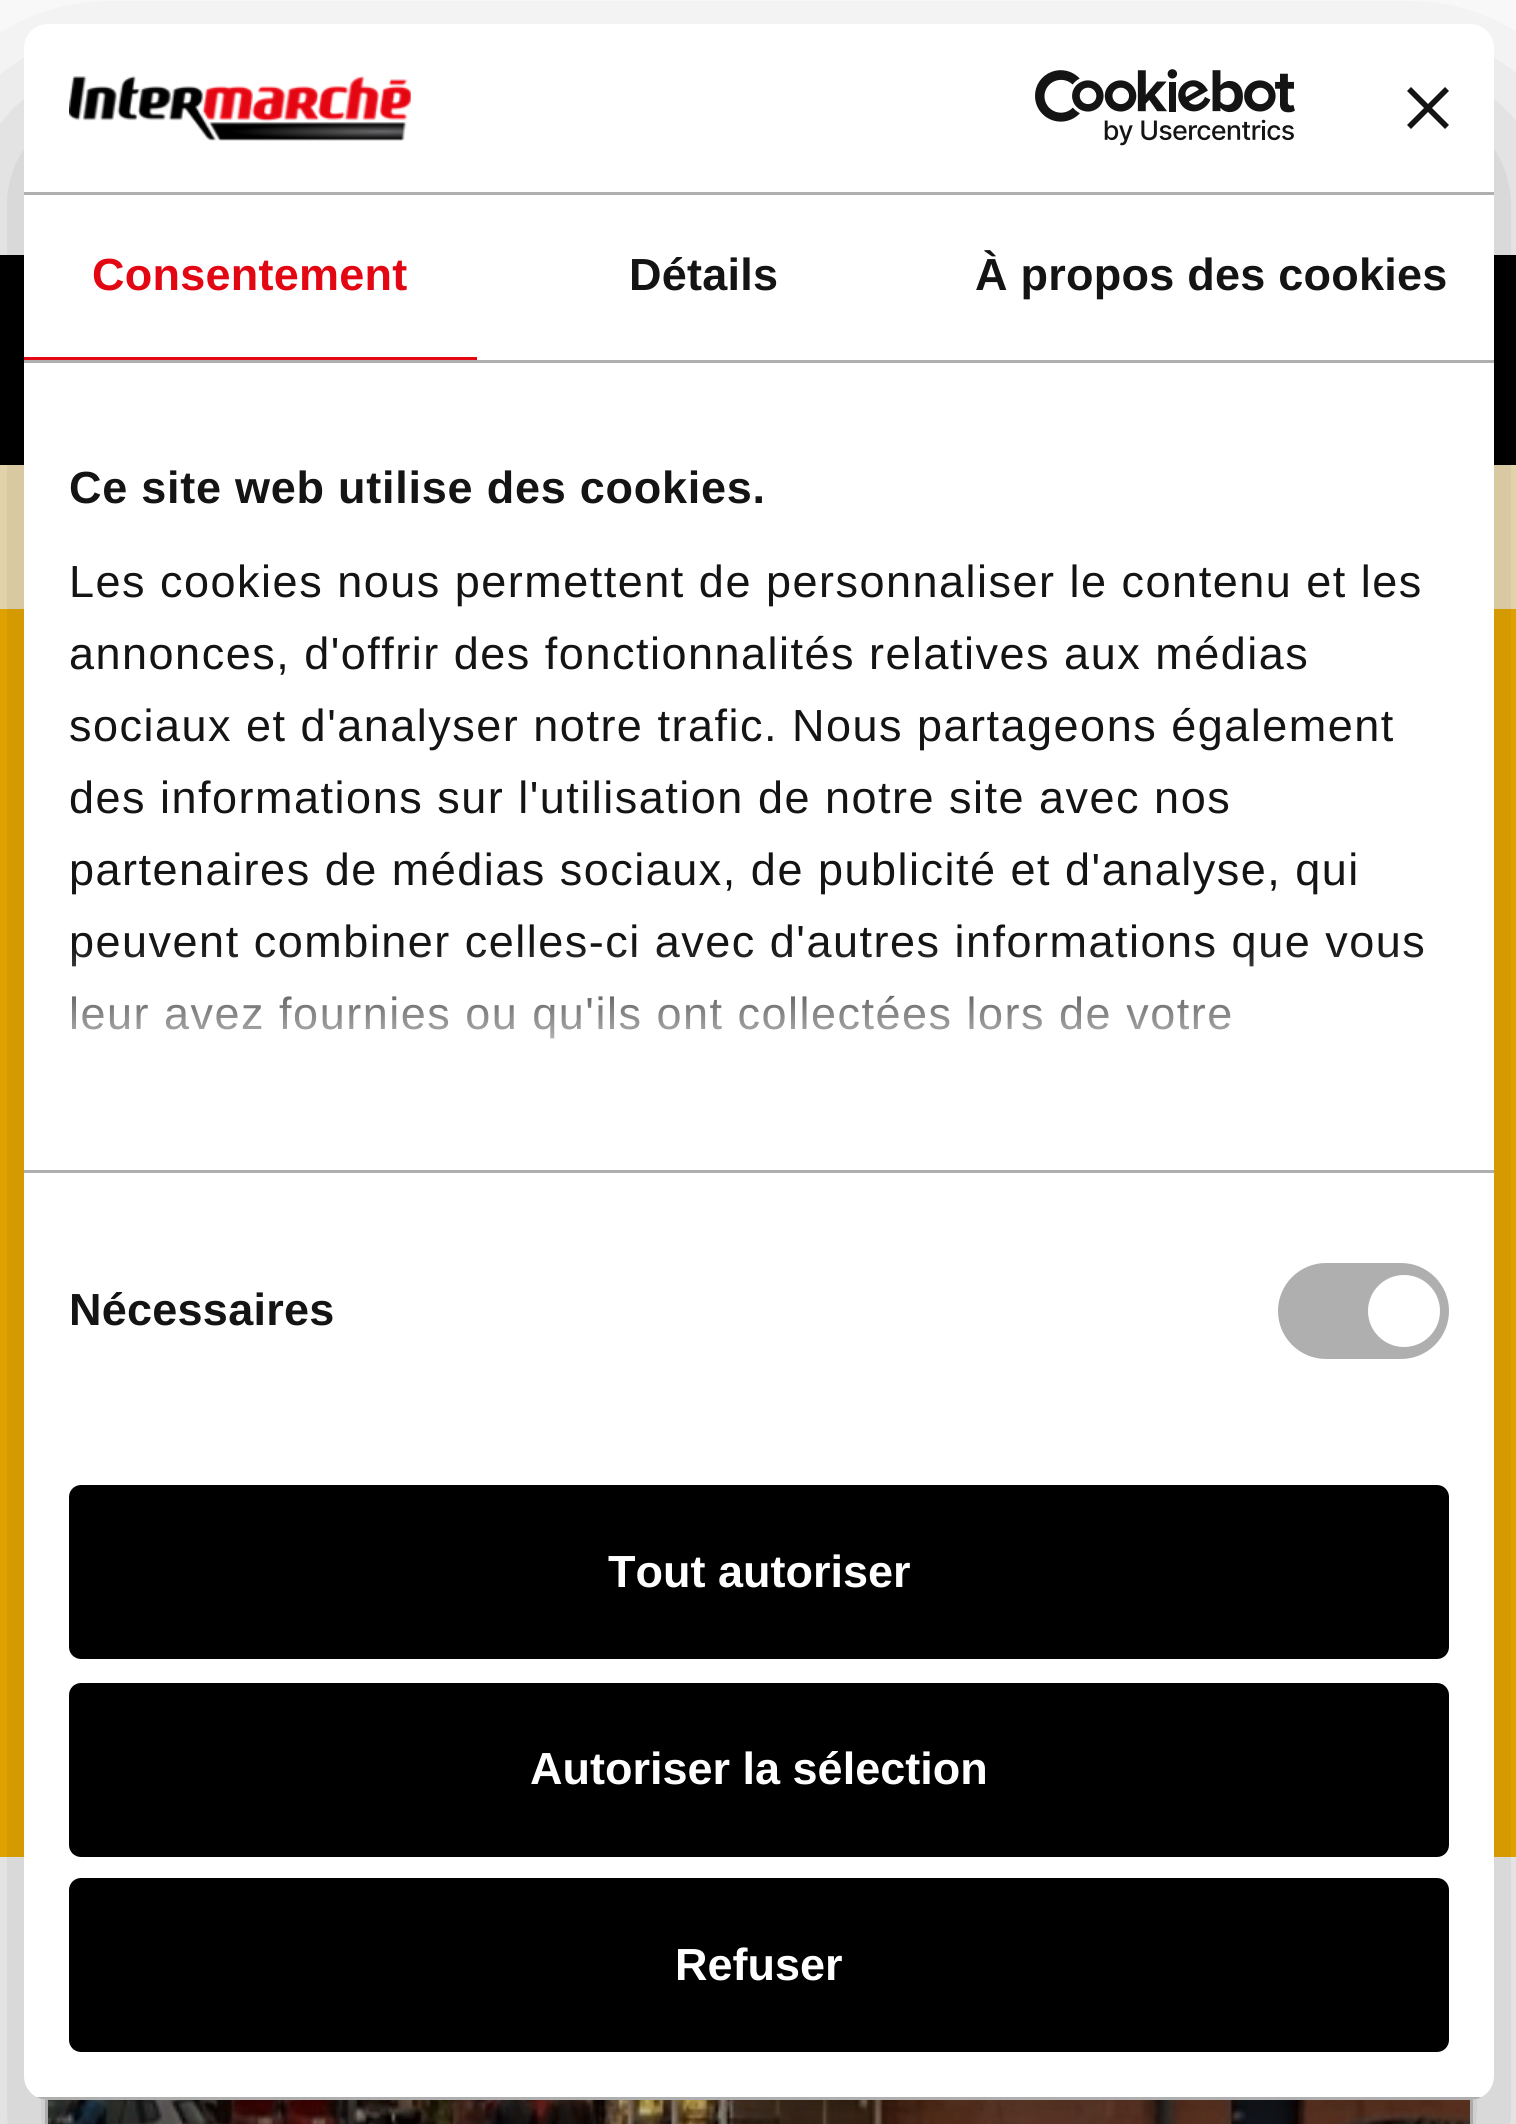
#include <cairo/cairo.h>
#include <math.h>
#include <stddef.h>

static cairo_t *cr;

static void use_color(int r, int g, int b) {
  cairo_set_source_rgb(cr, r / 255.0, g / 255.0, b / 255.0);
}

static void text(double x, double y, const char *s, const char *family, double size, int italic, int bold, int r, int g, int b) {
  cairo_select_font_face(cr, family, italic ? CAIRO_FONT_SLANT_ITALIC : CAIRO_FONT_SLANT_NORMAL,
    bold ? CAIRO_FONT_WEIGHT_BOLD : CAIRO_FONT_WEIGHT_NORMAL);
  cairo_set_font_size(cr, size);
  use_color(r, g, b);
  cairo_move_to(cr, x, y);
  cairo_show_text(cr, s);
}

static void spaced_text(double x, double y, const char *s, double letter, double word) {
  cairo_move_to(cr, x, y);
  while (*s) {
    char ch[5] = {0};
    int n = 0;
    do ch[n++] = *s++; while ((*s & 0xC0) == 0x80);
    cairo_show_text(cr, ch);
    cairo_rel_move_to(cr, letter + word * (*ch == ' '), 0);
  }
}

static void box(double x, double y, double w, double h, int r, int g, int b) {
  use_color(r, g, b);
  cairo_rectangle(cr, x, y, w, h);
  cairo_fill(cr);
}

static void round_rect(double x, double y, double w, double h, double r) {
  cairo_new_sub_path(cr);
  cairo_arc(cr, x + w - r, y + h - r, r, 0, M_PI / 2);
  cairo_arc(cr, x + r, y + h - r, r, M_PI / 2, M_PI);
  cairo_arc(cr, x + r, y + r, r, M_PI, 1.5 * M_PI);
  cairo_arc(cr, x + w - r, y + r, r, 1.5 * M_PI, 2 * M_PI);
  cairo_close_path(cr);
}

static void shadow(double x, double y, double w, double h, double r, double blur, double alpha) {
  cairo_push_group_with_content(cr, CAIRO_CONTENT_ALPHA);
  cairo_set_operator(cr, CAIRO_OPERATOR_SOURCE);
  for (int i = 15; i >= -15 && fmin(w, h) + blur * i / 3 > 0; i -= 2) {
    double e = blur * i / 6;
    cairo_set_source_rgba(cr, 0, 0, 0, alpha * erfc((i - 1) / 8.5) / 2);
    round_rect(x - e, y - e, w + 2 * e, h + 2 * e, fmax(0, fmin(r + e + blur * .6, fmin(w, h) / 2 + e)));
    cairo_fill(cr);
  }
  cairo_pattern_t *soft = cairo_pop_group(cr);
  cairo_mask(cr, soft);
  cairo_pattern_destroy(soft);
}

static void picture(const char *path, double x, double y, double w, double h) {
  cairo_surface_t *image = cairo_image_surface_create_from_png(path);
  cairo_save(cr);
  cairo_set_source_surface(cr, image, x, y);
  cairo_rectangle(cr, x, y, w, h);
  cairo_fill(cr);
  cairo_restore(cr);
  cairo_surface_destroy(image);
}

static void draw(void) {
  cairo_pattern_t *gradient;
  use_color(255, 255, 255);
  cairo_paint(cr);
  box(0, 255, 1516, 210, 0, 0, 0);
  box(0, 465, 1516, 144, 254, 236, 191);
  box(0, 609, 1516, 1248, 250, 181, 0);
  cairo_rectangle(cr, 46.5, 1408.5, 1425, 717);
  cairo_set_source_rgba(cr, 0, 0, 0, 0.18);
  cairo_set_line_width(cr, 3);
  cairo_stroke(cr);
  picture("img_03.png", 48, 2100, 1422, 24);
  use_color(0, 0, 0);
  shadow(24, 120, 1470, 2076, 24, 102, 0.3);
  use_color(255, 255, 255);
  round_rect(24, 24, 1470, 2076, 24);
  cairo_fill(cr);
  box(24, 192, 1470, 3, 175, 175, 175);
  picture("img_01.png", 69, 76, 342, 65);
  picture("img_02.png", 1035, 69, 260, 77);
  use_color(20, 20, 20);
  cairo_new_path(cr);
  cairo_move_to(cr, 1449, 91);
  cairo_line_to(cr, 1445, 87);
  cairo_line_to(cr, 1428, 104);
  cairo_line_to(cr, 1411, 87);
  cairo_line_to(cr, 1407, 91);
  cairo_line_to(cr, 1424, 108);
  cairo_line_to(cr, 1407, 125);
  cairo_line_to(cr, 1411, 129);
  cairo_line_to(cr, 1428, 112);
  cairo_line_to(cr, 1445, 129);
  cairo_line_to(cr, 1449, 125);
  cairo_line_to(cr, 1432, 108);
  cairo_close_path(cr);
  cairo_fill(cr);
  box(24, 360, 1470, 3, 175, 175, 175);
  box(24, 357, 453, 3, 227, 6, 19);
  box(24, 1170, 1470, 3, 175, 175, 175);
  round_rect(1278, 1263, 171, 96, 48);
  cairo_fill(cr);
  use_color(255, 255, 255);
  cairo_arc(cr, 1404, 1311, 36, 0, 2 * M_PI);
  cairo_fill(cr);
  cairo_save(cr);
  round_rect(24, 24, 1470, 2076, 24);
  cairo_clip(cr);
  box(36, 2097, 1446, 3, 175, 175, 175);
  cairo_restore(cr);
  use_color(0, 0, 0);
  round_rect(72, 1488, 1374, 168, 9);
  cairo_fill_preserve(cr);
  cairo_set_line_width(cr, 6);
  cairo_stroke(cr);
  round_rect(72, 1686, 1374, 168, 9);
  cairo_fill_preserve(cr);
  cairo_stroke(cr);
  round_rect(72, 1881, 1374, 168, 9);
  cairo_fill_preserve(cr);
  cairo_stroke(cr);
  cairo_select_font_face(cr, "Liberation Sans", CAIRO_FONT_SLANT_NORMAL, CAIRO_FONT_WEIGHT_BOLD);
  cairo_set_font_size(cr, 45);
  use_color(227, 6, 19);
  spaced_text(92, 290, "Consentement", 0.25, 0);
  use_color(20, 20, 20);
  spaced_text(629, 290, "Détails", 0.25, 0);
  spaced_text(975, 290, "À propos des cookies", 0.25, 0);
  spaced_text(69, 503, "Ce site web utilise des cookies.", 0.75, 0);
  cairo_select_font_face(cr, "Liberation Sans", CAIRO_FONT_SLANT_NORMAL, CAIRO_FONT_WEIGHT_NORMAL);
  spaced_text(69, 597, "Les cookies nous permettent de personnaliser le contenu et les", 1.5, 0);
  spaced_text(69, 669, "annonces, d'offrir des fonctionnalités relatives aux médias", 1.5, 0);
  spaced_text(69, 741, "sociaux et d'analyser notre trafic. Nous partageons également", 1.5, 0);
  spaced_text(69, 813, "des informations sur l'utilisation de notre site avec nos", 1.5, 0);
  spaced_text(69, 885, "partenaires de médias sociaux, de publicité et d'analyse, qui", 1.5, 0);
  spaced_text(69, 957, "peuvent combiner celles-ci avec d'autres informations que vous", 1.5, 0);
  spaced_text(69, 1029, "leur avez fournies ou qu'ils ont collectées lors de votre", 1.5, 0);
  gradient = cairo_pattern_create_linear(740, 1170, 740, 945);
  cairo_pattern_add_color_stop_rgba(gradient, 0, 1, 1, 1, 1);
  cairo_pattern_add_color_stop_rgba(gradient, 0.5, 1, 1, 1, 0.8);
  cairo_pattern_add_color_stop_rgba(gradient, 1, 1, 1, 1, 0);
  cairo_set_source(cr, gradient);
  cairo_pattern_destroy(gradient);
  cairo_rectangle(cr, 72, 948, 1351, 91);
  cairo_fill(cr);
  cairo_select_font_face(cr, "Liberation Sans", CAIRO_FONT_SLANT_NORMAL, CAIRO_FONT_WEIGHT_BOLD);
  use_color(20, 20, 20);
  spaced_text(69, 1325, "Nécessaires", 0.25, 0);
  text(608, 1587, "Tout autoriser", "Liberation Sans", 45, 0, 1, 255, 255, 255);
  text(530, 1784, "Autoriser la sélection", "Liberation Sans", 45, 0, 1, 255, 255, 255);
  text(675, 1980, "Refuser", "Liberation Sans", 45, 0, 1, 255, 255, 255);
}

int main(void) {
  cairo_surface_t *surface = cairo_image_surface_create(CAIRO_FORMAT_RGB24, 1516, 2124);
  cr = cairo_create(surface);
  cairo_font_options_t *options = cairo_font_options_create();
  cairo_font_options_set_hint_metrics(options, CAIRO_HINT_METRICS_OFF);
  cairo_font_options_set_hint_style(options, CAIRO_HINT_STYLE_NONE);
  cairo_set_font_options(cr, options);
  cairo_set_miter_limit(cr, 4);
  draw();
  cairo_surface_write_to_png(surface, "out.png");
  cairo_font_options_destroy(options);
  cairo_destroy(cr);
  cairo_surface_destroy(surface);
  return 0;
}
